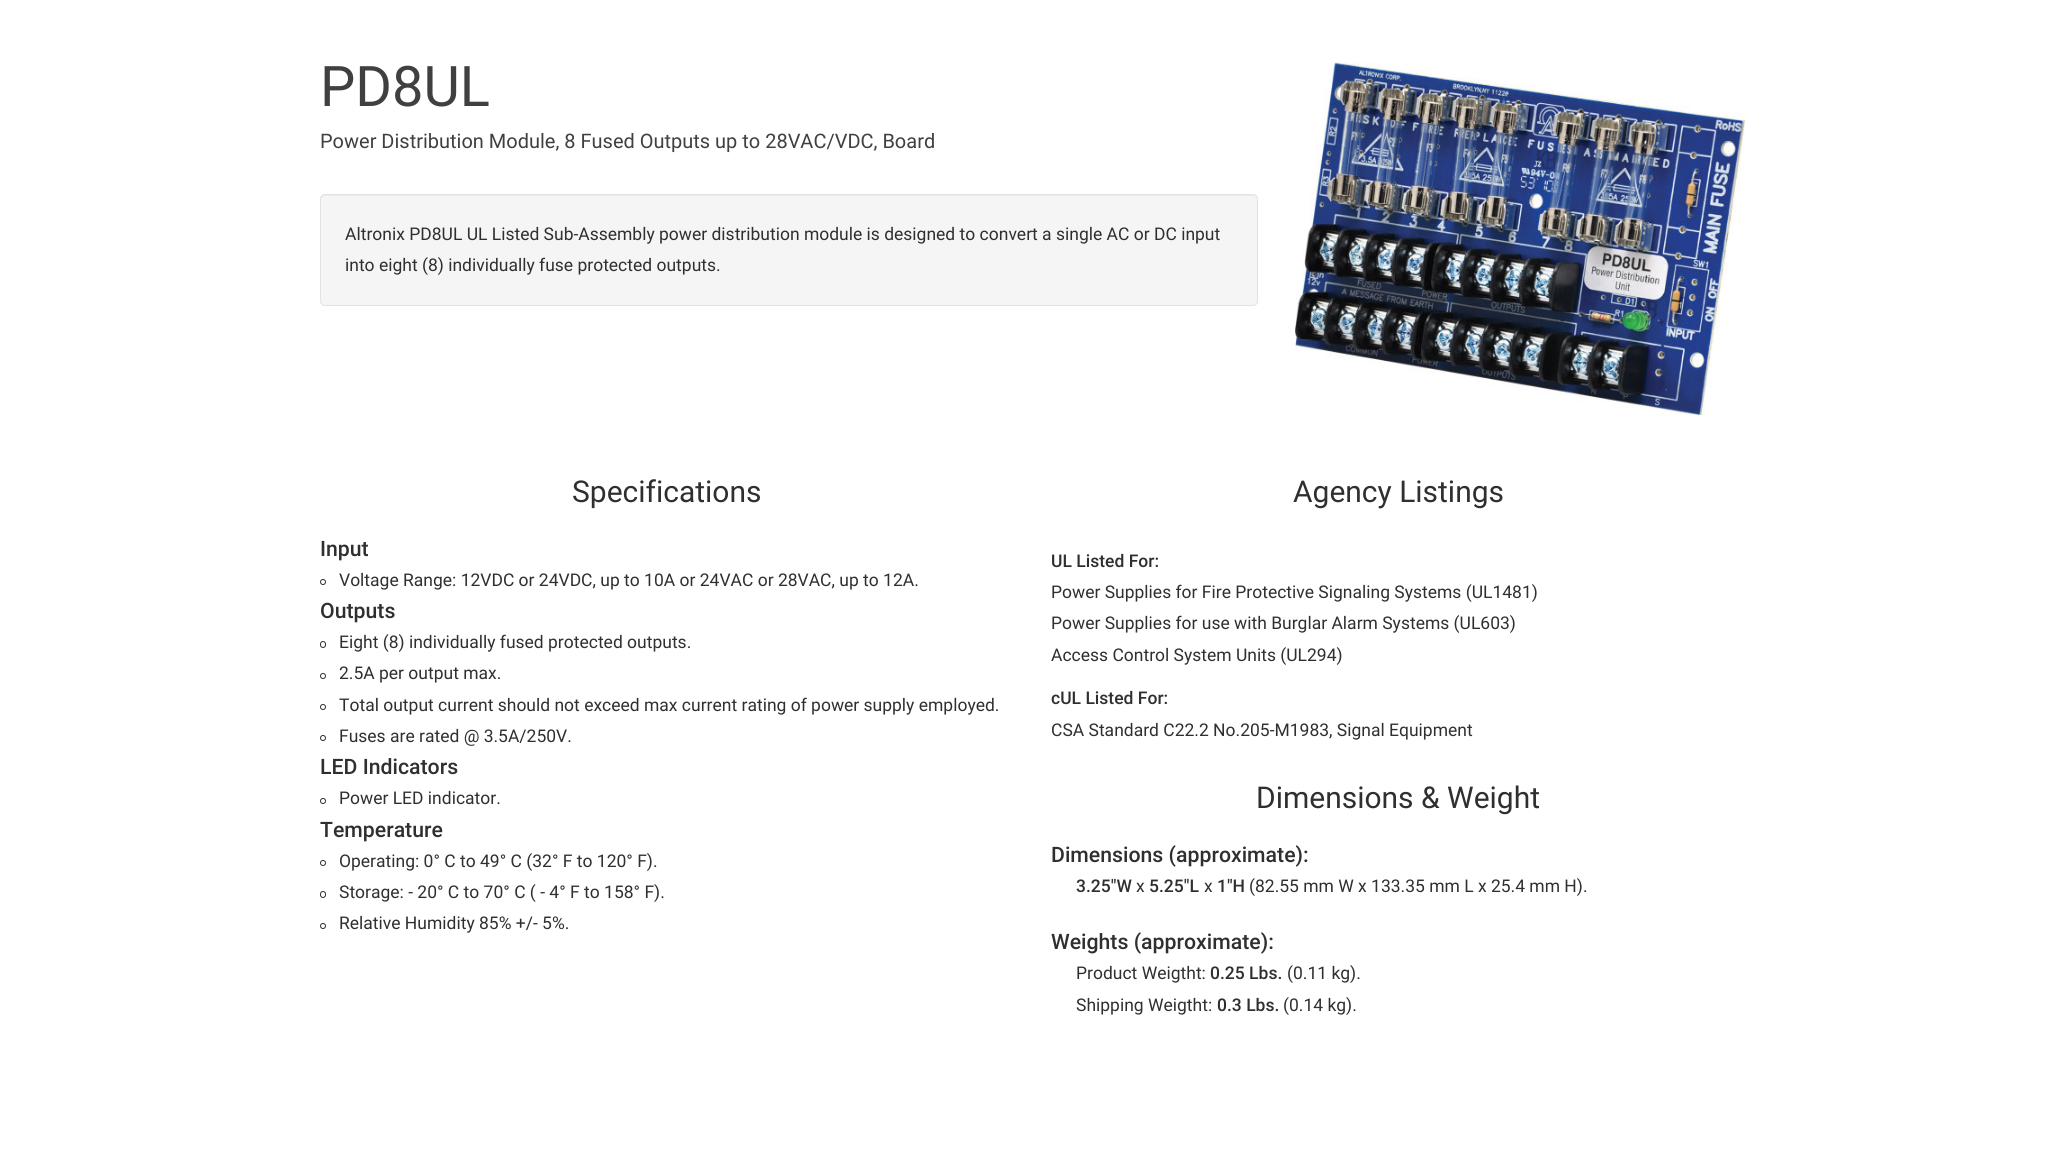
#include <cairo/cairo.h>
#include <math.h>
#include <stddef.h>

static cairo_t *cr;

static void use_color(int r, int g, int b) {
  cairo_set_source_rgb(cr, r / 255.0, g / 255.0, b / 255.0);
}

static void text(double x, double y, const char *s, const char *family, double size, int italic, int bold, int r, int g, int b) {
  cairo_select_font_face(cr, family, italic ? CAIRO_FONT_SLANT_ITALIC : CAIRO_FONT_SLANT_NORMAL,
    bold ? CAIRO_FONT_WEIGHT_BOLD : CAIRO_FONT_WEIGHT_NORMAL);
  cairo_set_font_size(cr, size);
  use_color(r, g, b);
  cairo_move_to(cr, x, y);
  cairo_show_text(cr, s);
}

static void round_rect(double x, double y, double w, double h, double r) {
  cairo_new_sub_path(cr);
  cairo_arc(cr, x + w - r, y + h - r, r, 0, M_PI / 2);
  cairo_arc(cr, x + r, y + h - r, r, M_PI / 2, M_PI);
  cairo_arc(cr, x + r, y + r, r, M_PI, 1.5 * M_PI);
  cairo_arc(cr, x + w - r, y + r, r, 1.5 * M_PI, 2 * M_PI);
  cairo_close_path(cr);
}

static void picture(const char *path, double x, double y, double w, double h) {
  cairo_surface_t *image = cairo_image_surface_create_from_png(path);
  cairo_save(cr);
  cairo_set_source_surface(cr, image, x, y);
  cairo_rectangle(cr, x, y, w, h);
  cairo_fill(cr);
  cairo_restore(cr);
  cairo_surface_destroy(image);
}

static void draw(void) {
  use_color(255, 255, 255);
  cairo_paint(cr);
  use_color(245, 245, 245);
  round_rect(320, 194, 938, 112, 5);
  cairo_fill(cr);
  use_color(233, 233, 233);
  cairo_new_path(cr);
  cairo_move_to(cr, 325, 196);
  cairo_line_to(cr, 1252, 196);
  cairo_curve_to(cr, 1255, 196, 1256, 198, 1256, 200);
  cairo_curve_to(cr, 1256, 197, 1255, 195, 1252, 195);
  cairo_line_to(cr, 325, 195);
  cairo_curve_to(cr, 322, 195, 321, 197, 321, 200);
  cairo_curve_to(cr, 321, 198, 323, 196, 325, 196);
  cairo_close_path(cr);
  cairo_fill(cr);
  round_rect(320.5, 194.5, 937, 111, 4.5);
  use_color(227, 227, 227);
  cairo_set_line_width(cr, 1);
  cairo_stroke(cr);
  picture("img_01.png", 1295, 62, 450, 353);
  cairo_arc(cr, 323, 582, 2.5, 0, 2 * M_PI);
  use_color(47, 47, 47);
  cairo_stroke(cr);
  round_rect(320.5, 641.5, 5, 6, 2.5);
  cairo_stroke(cr);
  cairo_arc(cr, 323, 676, 2.5, 0, 2 * M_PI);
  cairo_stroke(cr);
  cairo_arc(cr, 323, 707, 2.5, 0, 2 * M_PI);
  cairo_stroke(cr);
  cairo_arc(cr, 323, 738, 2.5, 0, 2 * M_PI);
  cairo_stroke(cr);
  cairo_arc(cr, 323, 801, 2.5, 0, 2 * M_PI);
  cairo_stroke(cr);
  cairo_arc(cr, 323, 863, 2.5, 0, 2 * M_PI);
  cairo_stroke(cr);
  round_rect(320.5, 891.5, 5, 6, 2.5);
  cairo_stroke(cr);
  cairo_arc(cr, 323, 926, 2.5, 0, 2 * M_PI);
  cairo_stroke(cr);
  text(320, 106, "PD8UL", "Roboto", 56, 0, 0, 64, 64, 64);
  text(320, 148, "Power Distribution Module, 8 Fused Outputs up to 28VAC/VDC, Board", "Roboto", 20, 0, 0, 64, 64, 64);
  text(345, 240, "Altronix PD8UL UL Listed Sub-Assembly power distribution module is designed to convert a single AC or DC input", "Roboto", 17.5, 0, 0, 47, 47, 47);
  text(345, 271, "into eight (8) individually fuse protected outputs.", "Roboto", 17.5, 0, 0, 47, 47, 47);
  text(572, 502, "Specifications", "Roboto", 30, 0, 0, 47, 47, 47);
  text(320, 556, "Input", "Roboto Medium", 21.25, 0, 0, 47, 47, 47);
  text(339, 586, "Voltage Range: 12VDC or 24VDC, up to 10A or 24VAC or 28VAC, up to 12A.", "Roboto", 17.5, 0, 0, 47, 47, 47);
  text(320, 618, "Outputs", "Roboto Medium", 21.25, 0, 0, 47, 47, 47);
  text(339, 648, "Eight (8) individually fused protected outputs.", "Roboto", 17.5, 0, 0, 47, 47, 47);
  text(339, 679, "2.5A per output max.", "Roboto", 17.5, 0, 0, 47, 47, 47);
  text(339, 711, "Total output current should not exceed max current rating of power supply employed.", "Roboto", 17.5, 0, 0, 47, 47, 47);
  text(339, 742, "Fuses are rated @ 3.5A/250V.", "Roboto", 17.5, 0, 0, 47, 47, 47);
  text(320, 774, "LED Indicators", "Roboto Medium", 21.25, 0, 0, 47, 47, 47);
  text(339, 804, "Power LED indicator.", "Roboto", 17.5, 0, 0, 47, 47, 47);
  text(320, 837, "Temperature", "Roboto Medium", 21.25, 0, 0, 47, 47, 47);
  text(339, 867, "Operating: 0° C to 49° C (32° F to 120° F).", "Roboto", 17.5, 0, 0, 47, 47, 47);
  text(339, 898, "Storage: - 20° C to 70° C ( - 4° F to 158° F).", "Roboto", 17.5, 0, 0, 47, 47, 47);
  text(339, 929, "Relative Humidity 85% +/- 5%.", "Roboto", 17.5, 0, 0, 47, 47, 47);
  text(1293, 502, "Agency Listings", "Roboto", 30, 0, 0, 47, 47, 47);
  text(1051, 567, "UL Listed For:", "Roboto Medium", 17.5, 0, 0, 47, 47, 47);
  text(1051, 598, "Power Supplies for Fire Protective Signaling Systems (UL1481)", "Roboto", 17.5, 0, 0, 47, 47, 47);
  text(1051, 629, "Power Supplies for use with Burglar Alarm Systems (UL603)", "Roboto", 17.5, 0, 0, 47, 47, 47);
  text(1051, 661, "Access Control System Units (UL294)", "Roboto", 17.5, 0, 0, 47, 47, 47);
  text(1051, 704, "cUL Listed For:", "Roboto Medium", 17.5, 0, 0, 47, 47, 47);
  text(1051, 736, "CSA Standard C22.2 No.205-M1983, Signal Equipment", "Roboto", 17.5, 0, 0, 47, 47, 47);
  text(1256, 808, "Dimensions & Weight", "Roboto", 30, 0, 0, 47, 47, 47);
  text(1051, 862, "Dimensions (approximate):", "Roboto Medium", 21.25, 0, 0, 47, 47, 47);
  text(1076, 892, "3.25\"W", "Roboto Medium", 17.5, 0, 0, 47, 47, 47);
  text(1136, 892, "x", "Roboto", 17.5, 0, 0, 47, 47, 47);
  text(1149, 892, "5.25\"L", "Roboto Medium", 17.5, 0, 0, 47, 47, 47);
  text(1204, 892, "x", "Roboto", 17.5, 0, 0, 47, 47, 47);
  text(1217, 892, "1\"H", "Roboto Medium", 17.5, 0, 0, 47, 47, 47);
  text(1249, 892, "(82.55 mm W x 133.35 mm L x 25.4 mm H).", "Roboto", 17.5, 0, 0, 47, 47, 47);
  text(1051, 949, "Weights (approximate):", "Roboto Medium", 21.25, 0, 0, 47, 47, 47);
  text(1076, 979, "Product Weigtht:", "Roboto", 17.5, 0, 0, 47, 47, 47);
  text(1210, 979, "0.25 Lbs.", "Roboto Medium", 17.5, 0, 0, 47, 47, 47);
  text(1287, 979, "(0.11 kg).", "Roboto", 17.5, 0, 0, 47, 47, 47);
  text(1076, 1011, "Shipping Weigtht:", "Roboto", 17.5, 0, 0, 47, 47, 47);
  text(1217, 1011, "0.3 Lbs.", "Roboto Medium", 17.5, 0, 0, 47, 47, 47);
  text(1283, 1011, "(0.14 kg).", "Roboto", 17.5, 0, 0, 47, 47, 47);
}

int main(void) {
  cairo_surface_t *surface = cairo_image_surface_create(CAIRO_FORMAT_RGB24, 2064, 1164);
  cr = cairo_create(surface);
  cairo_font_options_t *options = cairo_font_options_create();
  cairo_font_options_set_hint_metrics(options, CAIRO_HINT_METRICS_OFF);
  cairo_font_options_set_hint_style(options, CAIRO_HINT_STYLE_NONE);
  cairo_set_font_options(cr, options);
  cairo_set_miter_limit(cr, 4);
  draw();
  cairo_surface_write_to_png(surface, "out.png");
  cairo_font_options_destroy(options);
  cairo_destroy(cr);
  cairo_surface_destroy(surface);
  return 0;
}
